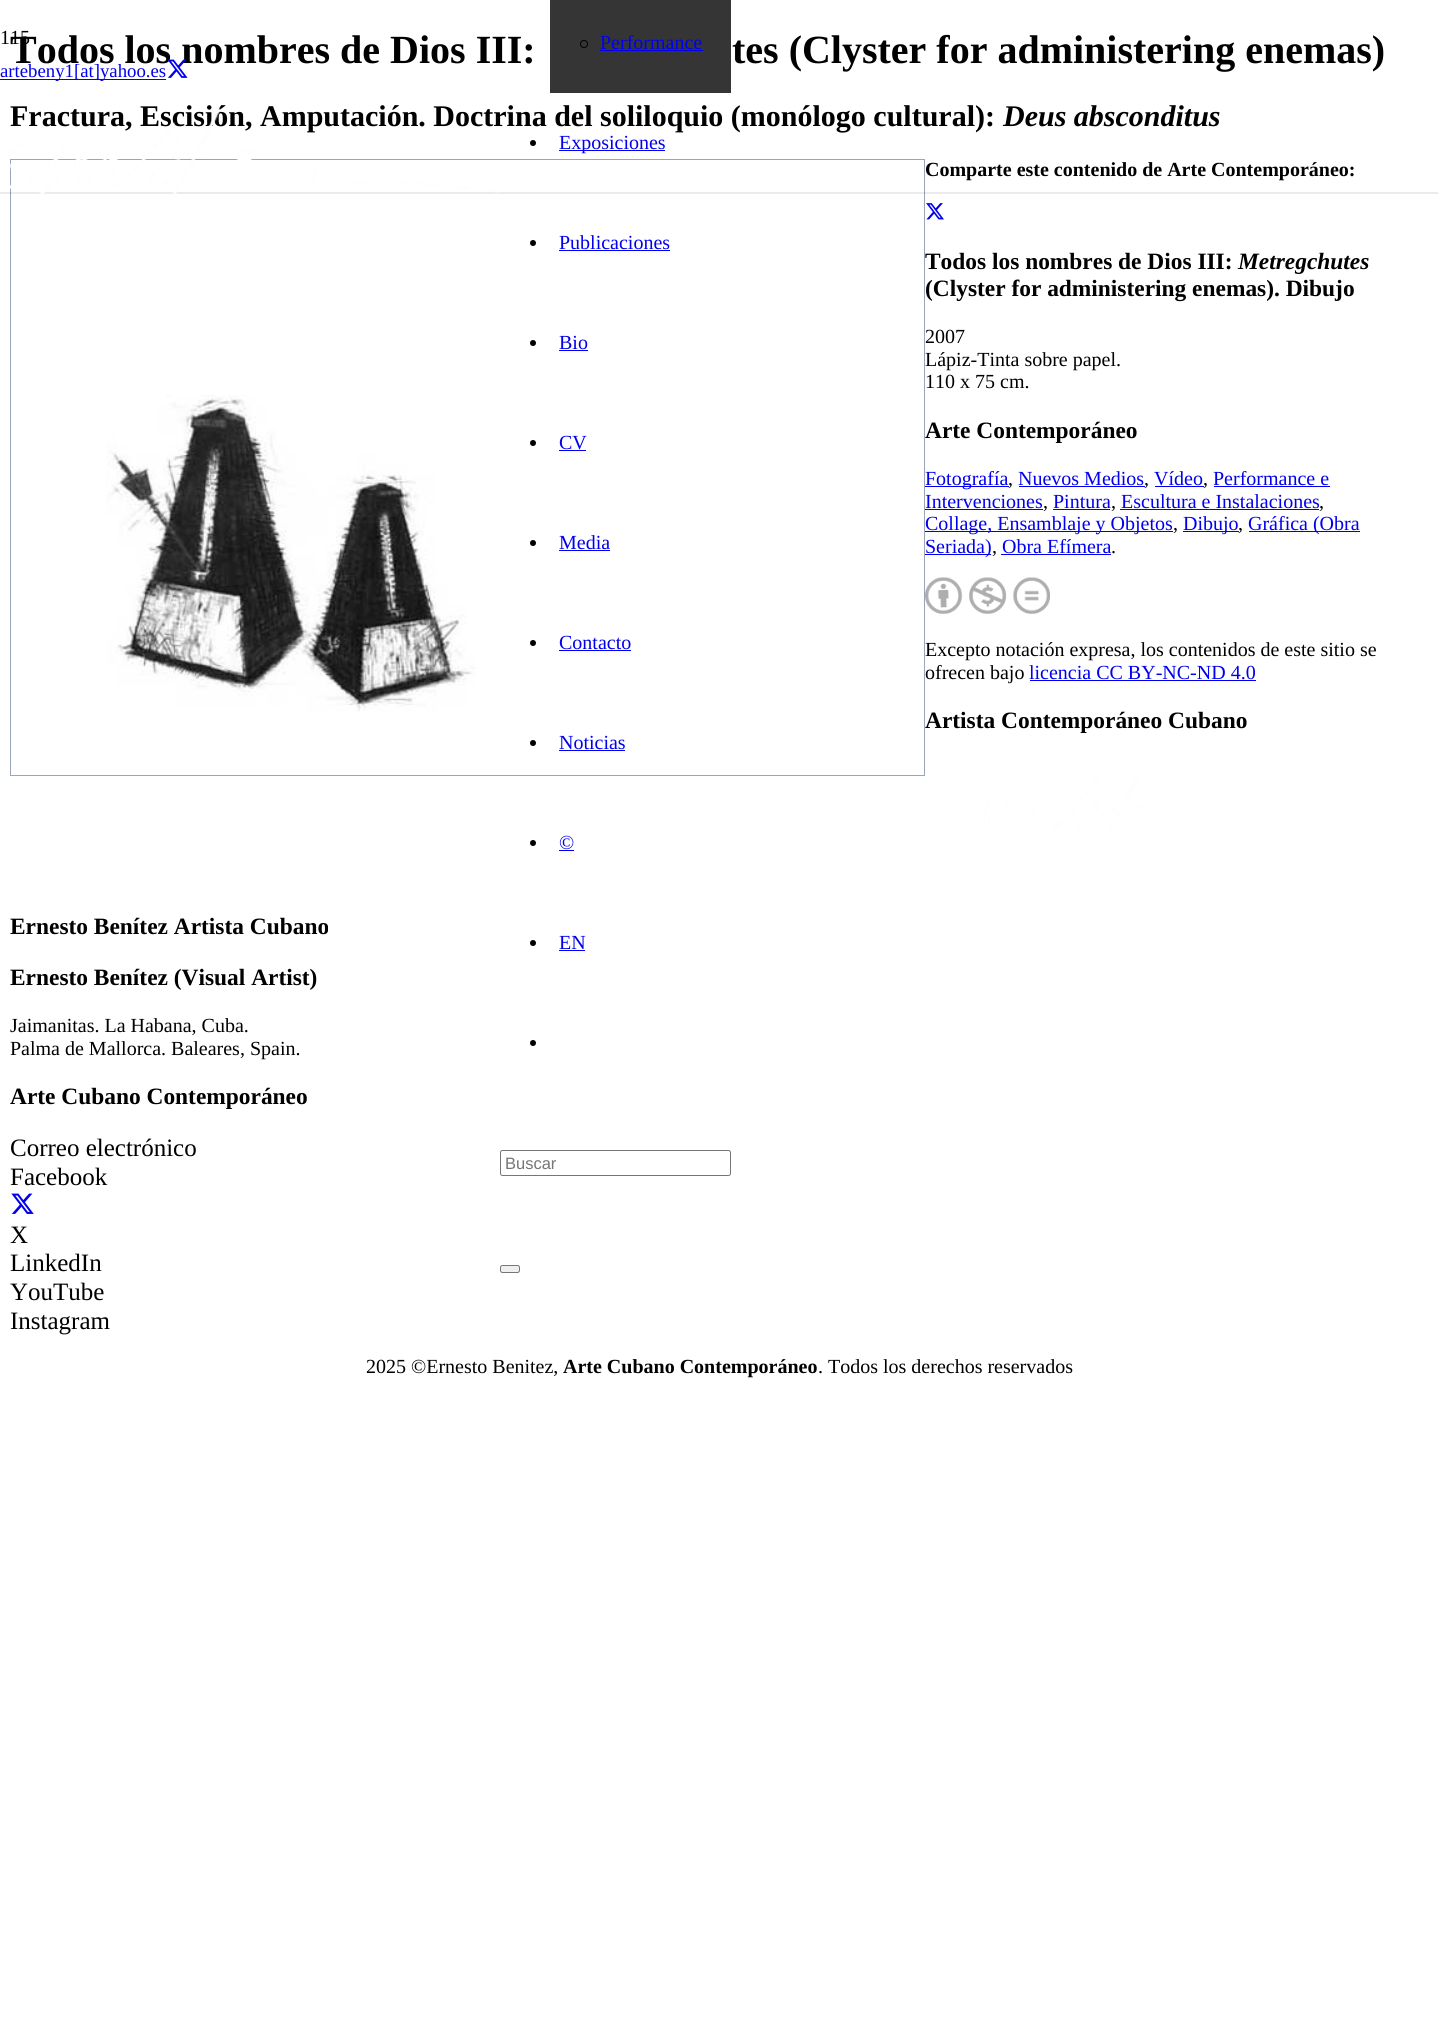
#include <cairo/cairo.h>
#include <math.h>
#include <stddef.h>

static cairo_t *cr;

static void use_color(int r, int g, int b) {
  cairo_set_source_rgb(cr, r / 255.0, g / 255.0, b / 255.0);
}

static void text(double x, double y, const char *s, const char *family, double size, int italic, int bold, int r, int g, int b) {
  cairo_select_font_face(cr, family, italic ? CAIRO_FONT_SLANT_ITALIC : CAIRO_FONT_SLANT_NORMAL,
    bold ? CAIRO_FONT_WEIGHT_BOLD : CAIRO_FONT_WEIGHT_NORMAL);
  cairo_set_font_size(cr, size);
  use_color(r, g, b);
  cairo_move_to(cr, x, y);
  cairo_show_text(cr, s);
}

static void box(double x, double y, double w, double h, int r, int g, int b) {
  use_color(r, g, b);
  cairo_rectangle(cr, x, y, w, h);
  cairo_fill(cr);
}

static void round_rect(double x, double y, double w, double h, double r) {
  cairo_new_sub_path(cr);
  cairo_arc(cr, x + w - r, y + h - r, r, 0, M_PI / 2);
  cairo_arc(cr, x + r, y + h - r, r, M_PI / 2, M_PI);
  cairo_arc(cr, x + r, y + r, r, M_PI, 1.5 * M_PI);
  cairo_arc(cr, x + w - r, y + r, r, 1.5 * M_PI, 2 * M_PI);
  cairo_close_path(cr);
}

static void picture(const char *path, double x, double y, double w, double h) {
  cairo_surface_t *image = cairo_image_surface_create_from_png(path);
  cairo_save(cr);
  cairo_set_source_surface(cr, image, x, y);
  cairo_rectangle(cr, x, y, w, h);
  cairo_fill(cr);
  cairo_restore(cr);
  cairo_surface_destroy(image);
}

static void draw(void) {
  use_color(255, 255, 255);
  cairo_paint(cr);
  cairo_rectangle(cr, 10.5, 159.5, 914, 616);
  use_color(154, 164, 186);
  cairo_set_line_width(cr, 1);
  cairo_stroke(cr);
  cairo_set_source_rgba(cr, 0, 0, 0, 0.08);
  cairo_new_path(cr);
  cairo_move_to(cr, 0, 192);
  cairo_line_to(cr, 0, 194);
  cairo_line_to(cr, 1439, 194);
  cairo_line_to(cr, 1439, 94);
  cairo_line_to(cr, 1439, 192);
  cairo_close_path(cr);
  cairo_fill(cr);
  cairo_set_source_rgba(cr, 0, 0, 0, 0.79);
  cairo_rectangle(cr, 550, 0, 181, 93);
  cairo_fill(cr);
  cairo_arc(cr, 584, 44, 3.5, 0, 2 * M_PI);
  use_color(0, 0, 0);
  cairo_stroke(cr);
  box(600, 50, 103, 1, 0, 0, 238);
  use_color(0, 0, 0);
  cairo_arc(cr, 533, 143, 3, 0, 2 * M_PI);
  cairo_fill(cr);
  box(559, 150, 106, 1, 0, 0, 238);
  use_color(0, 0, 0);
  cairo_arc(cr, 533, 243, 3, 0, 2 * M_PI);
  cairo_fill(cr);
  box(559, 250, 111, 1, 0, 0, 238);
  use_color(0, 0, 0);
  cairo_arc(cr, 533, 343, 3, 0, 2 * M_PI);
  cairo_fill(cr);
  box(559, 350, 29, 1, 0, 0, 238);
  use_color(0, 0, 0);
  cairo_arc(cr, 533, 443, 3, 0, 2 * M_PI);
  cairo_fill(cr);
  box(559, 450, 27, 1, 0, 0, 238);
  use_color(0, 0, 0);
  cairo_arc(cr, 533, 543, 3, 0, 2 * M_PI);
  cairo_fill(cr);
  box(559, 550, 51, 1, 0, 0, 238);
  use_color(0, 0, 0);
  cairo_arc(cr, 533, 643, 3, 0, 2 * M_PI);
  cairo_fill(cr);
  box(559, 650, 72, 1, 0, 0, 238);
  use_color(0, 0, 0);
  cairo_arc(cr, 533, 743, 3, 0, 2 * M_PI);
  cairo_fill(cr);
  box(559, 750, 66, 1, 0, 0, 238);
  use_color(0, 0, 0);
  cairo_arc(cr, 533, 843, 3, 0, 2 * M_PI);
  cairo_fill(cr);
  box(559, 850, 15, 1, 0, 0, 238);
  use_color(0, 0, 0);
  cairo_arc(cr, 533, 943, 3, 0, 2 * M_PI);
  cairo_fill(cr);
  box(559, 950, 26, 1, 0, 0, 238);
  use_color(0, 0, 0);
  cairo_arc(cr, 533, 1043, 3, 0, 2 * M_PI);
  cairo_fill(cr);
  round_rect(500.5, 1150.5, 230, 25, 2);
  use_color(118, 118, 118);
  cairo_stroke(cr);
  use_color(239, 239, 239);
  round_rect(500.5, 1265.5, 19, 7, 2);
  cairo_fill_preserve(cr);
  use_color(118, 118, 118);
  cairo_stroke(cr);
  box(0, 79, 166, 1, 0, 0, 238);
  picture("img_03.png", 106, 395, 370, 317);
  picture("img_04.png", 926, 203, 18, 17);
  box(925, 486, 84, 1, 0, 0, 238);
  box(1019, 486, 126, 1, 0, 0, 238);
  box(1155, 486, 49, 1, 0, 0, 238);
  box(1214, 486, 116, 1, 0, 0, 238);
  box(925, 509, 118, 1, 0, 0, 238);
  box(1053, 509, 57, 1, 0, 0, 238);
  box(1120, 509, 199, 1, 0, 0, 238);
  box(925, 531, 248, 1, 0, 0, 238);
  box(1183, 531, 56, 1, 0, 0, 238);
  box(1249, 531, 111, 1, 0, 0, 238);
  box(925, 554, 66, 1, 0, 0, 238);
  box(1001, 554, 110, 1, 0, 0, 238);
  picture("img_05.png", 925, 577, 125, 37);
  box(1030, 680, 226, 1, 0, 0, 238);
  picture("img_06.png", 984, 764, 161, 66);
  picture("img_07.png", 11, 1193, 23, 21);
  text(600, 49, "Performance", "Liberation Serif", 20, 0, 0, 0, 0, 238);
  text(559, 149, "Exposiciones", "Liberation Serif", 20, 0, 0, 0, 0, 238);
  text(559, 249, "Publicaciones", "Liberation Serif", 20, 0, 0, 0, 0, 238);
  text(559, 349, "Bio", "Liberation Serif", 20, 0, 0, 0, 0, 238);
  text(559, 449, "CV", "Liberation Serif", 20, 0, 0, 0, 0, 238);
  text(559, 549, "Media", "Liberation Serif", 20, 0, 0, 0, 0, 238);
  text(559, 649, "Contacto", "Liberation Serif", 20, 0, 0, 0, 0, 238);
  text(559, 749, "Noticias", "Liberation Serif", 20, 0, 0, 0, 0, 238);
  text(559, 849, "©", "Liberation Serif", 20, 0, 0, 0, 0, 238);
  text(559, 949, "EN", "Liberation Serif", 20, 0, 0, 0, 0, 238);
  text(505, 1169, "Buscar", "Liberation Sans", 16.5, 0, 0, 117, 117, 117);
  text(0, 77, "artebeny1[at]yahoo.es", "Liberation Serif", 18.75, 0, 0, 0, 0, 238);
  text(10, 63, "Todos los nombres de Dios III:", "Liberation Serif", 40, 0, 1, 0, 0, 0);
  picture("img_02.png", 167, 59, 21, 19);
  text(0, 44, "115", "Liberation Serif", 20, 0, 0, 0, 0, 0);
  text(732, 63, "tes (Clyster for administering enemas)", "Liberation Serif", 40, 0, 1, 0, 0, 0);
  text(10, 126, "Fractura, Escisión, Amputación. Doctrina del soliloquio (monólogo cultural):", "Liberation Serif", 30, 0, 1, 0, 0, 0);
  picture("img_01.png", 9, 108, 491, 93);
  text(1003, 126, "Deus absconditus", "Liberation Serif", 30, 1, 1, 0, 0, 0);
  text(925, 176, "Comparte este contenido de Arte Contemporáneo:", "Liberation Serif", 20, 0, 1, 0, 0, 0);
  text(925, 269, "Todos los nombres de Dios III:", "Liberation Serif", 23.4, 0, 1, 0, 0, 0);
  text(1238, 269, "Metregchutes", "Liberation Serif", 23.4, 1, 1, 0, 0, 0);
  text(925, 296, "(Clyster for administering enemas). Dibujo", "Liberation Serif", 23.4, 0, 1, 0, 0, 0);
  text(925, 343, "2007", "Liberation Serif", 20, 0, 0, 0, 0, 0);
  text(925, 366, "Lápiz-Tinta sobre papel.", "Liberation Serif", 20, 0, 0, 0, 0, 0);
  text(925, 388, "110 x 75 cm.", "Liberation Serif", 20, 0, 0, 0, 0, 0);
  text(925, 438, "Arte Contemporáneo", "Liberation Serif", 23.4, 0, 1, 0, 0, 0);
  text(925, 485, "Fotografía", "Liberation Serif", 20, 0, 0, 0, 0, 238);
  text(1008, 485, ",", "Liberation Serif", 20, 0, 0, 0, 0, 0);
  text(1018, 485, "Nuevos Medios", "Liberation Serif", 20, 0, 0, 0, 0, 238);
  text(1144, 485, ",", "Liberation Serif", 20, 0, 0, 0, 0, 0);
  text(1154, 485, "Vídeo", "Liberation Serif", 20, 0, 0, 0, 0, 238);
  text(1203, 485, ",", "Liberation Serif", 20, 0, 0, 0, 0, 0);
  text(1213, 485, "Performance e", "Liberation Serif", 20, 0, 0, 0, 0, 238);
  text(925, 508, "Intervenciones", "Liberation Serif", 20, 0, 0, 0, 0, 238);
  text(1043, 508, ",", "Liberation Serif", 20, 0, 0, 0, 0, 0);
  text(1053, 508, "Pintura", "Liberation Serif", 20, 0, 0, 0, 0, 238);
  text(1111, 508, ",", "Liberation Serif", 20, 0, 0, 0, 0, 0);
  text(1121, 508, "Escultura e Instalaciones", "Liberation Serif", 20, 0, 0, 0, 0, 238);
  text(1319, 508, ",", "Liberation Serif", 20, 0, 0, 0, 0, 0);
  text(925, 530, "Collage, Ensamblaje y Objetos", "Liberation Serif", 20, 0, 0, 0, 0, 238);
  text(1173, 530, ",", "Liberation Serif", 20, 0, 0, 0, 0, 0);
  text(1183, 530, "Dibujo", "Liberation Serif", 20, 0, 0, 0, 0, 238);
  text(1238, 530, ",", "Liberation Serif", 20, 0, 0, 0, 0, 0);
  text(1248, 530, "Gráfica (Obra", "Liberation Serif", 20, 0, 0, 0, 0, 238);
  text(925, 553, "Seriada)", "Liberation Serif", 20, 0, 0, 0, 0, 238);
  text(992, 553, ",", "Liberation Serif", 20, 0, 0, 0, 0, 0);
  text(1002, 553, "Obra Efímera", "Liberation Serif", 20, 0, 0, 0, 0, 238);
  text(1111, 553, ".", "Liberation Serif", 20, 0, 0, 0, 0, 0);
  text(925, 656, "Excepto notación expresa, los contenidos de este sitio se", "Liberation Serif", 20, 0, 0, 0, 0, 0);
  text(925, 679, "ofrecen bajo", "Liberation Serif", 20, 0, 0, 0, 0, 0);
  text(1029, 679, "licencia CC BY-NC-ND 4.0", "Liberation Serif", 20, 0, 0, 0, 0, 238);
  text(925, 728, "Artista Contemporáneo Cubano", "Liberation Serif", 23.4, 0, 1, 0, 0, 0);
  text(10, 934, "Ernesto Benítez Artista Cubano", "Liberation Serif", 23.4, 0, 1, 0, 0, 0);
  text(10, 985, "Ernesto Benítez (Visual Artist)", "Liberation Serif", 23.4, 0, 1, 0, 0, 0);
  text(10, 1032, "Jaimanitas. La Habana, Cuba.", "Liberation Serif", 20, 0, 0, 0, 0, 0);
  text(10, 1055, "Palma de Mallorca. Baleares, Spain.", "Liberation Serif", 20, 0, 0, 0, 0, 0);
  text(10, 1104, "Arte Cubano Contemporáneo", "Liberation Serif", 23.4, 0, 1, 0, 0, 0);
  text(10, 1156, "Correo electrónico", "Liberation Serif", 25, 0, 0, 0, 0, 0);
  text(10, 1185, "Facebook", "Liberation Serif", 25, 0, 0, 0, 0, 0);
  text(10, 1243, "X", "Liberation Serif", 25, 0, 0, 0, 0, 0);
  text(10, 1271, "LinkedIn", "Liberation Serif", 25, 0, 0, 0, 0, 0);
  text(10, 1300, "YouTube", "Liberation Serif", 25, 0, 0, 0, 0, 0);
  text(10, 1329, "Instagram", "Liberation Serif", 25, 0, 0, 0, 0, 0);
  text(366, 1373, "2025 ©Ernesto Benitez,", "Liberation Serif", 20, 0, 0, 0, 0, 0);
  text(563, 1373, "Arte Cubano Contemporáneo", "Liberation Serif", 20, 0, 1, 0, 0, 0);
  text(818, 1373, ". Todos los derechos reservados", "Liberation Serif", 20, 0, 0, 0, 0, 0);
}

int main(void) {
  cairo_surface_t *surface = cairo_image_surface_create(CAIRO_FORMAT_RGB24, 1438, 2038);
  cr = cairo_create(surface);
  cairo_font_options_t *options = cairo_font_options_create();
  cairo_font_options_set_hint_metrics(options, CAIRO_HINT_METRICS_OFF);
  cairo_font_options_set_hint_style(options, CAIRO_HINT_STYLE_NONE);
  cairo_set_font_options(cr, options);
  cairo_set_miter_limit(cr, 4);
  draw();
  cairo_surface_write_to_png(surface, "out.png");
  cairo_font_options_destroy(options);
  cairo_destroy(cr);
  cairo_surface_destroy(surface);
  return 0;
}
